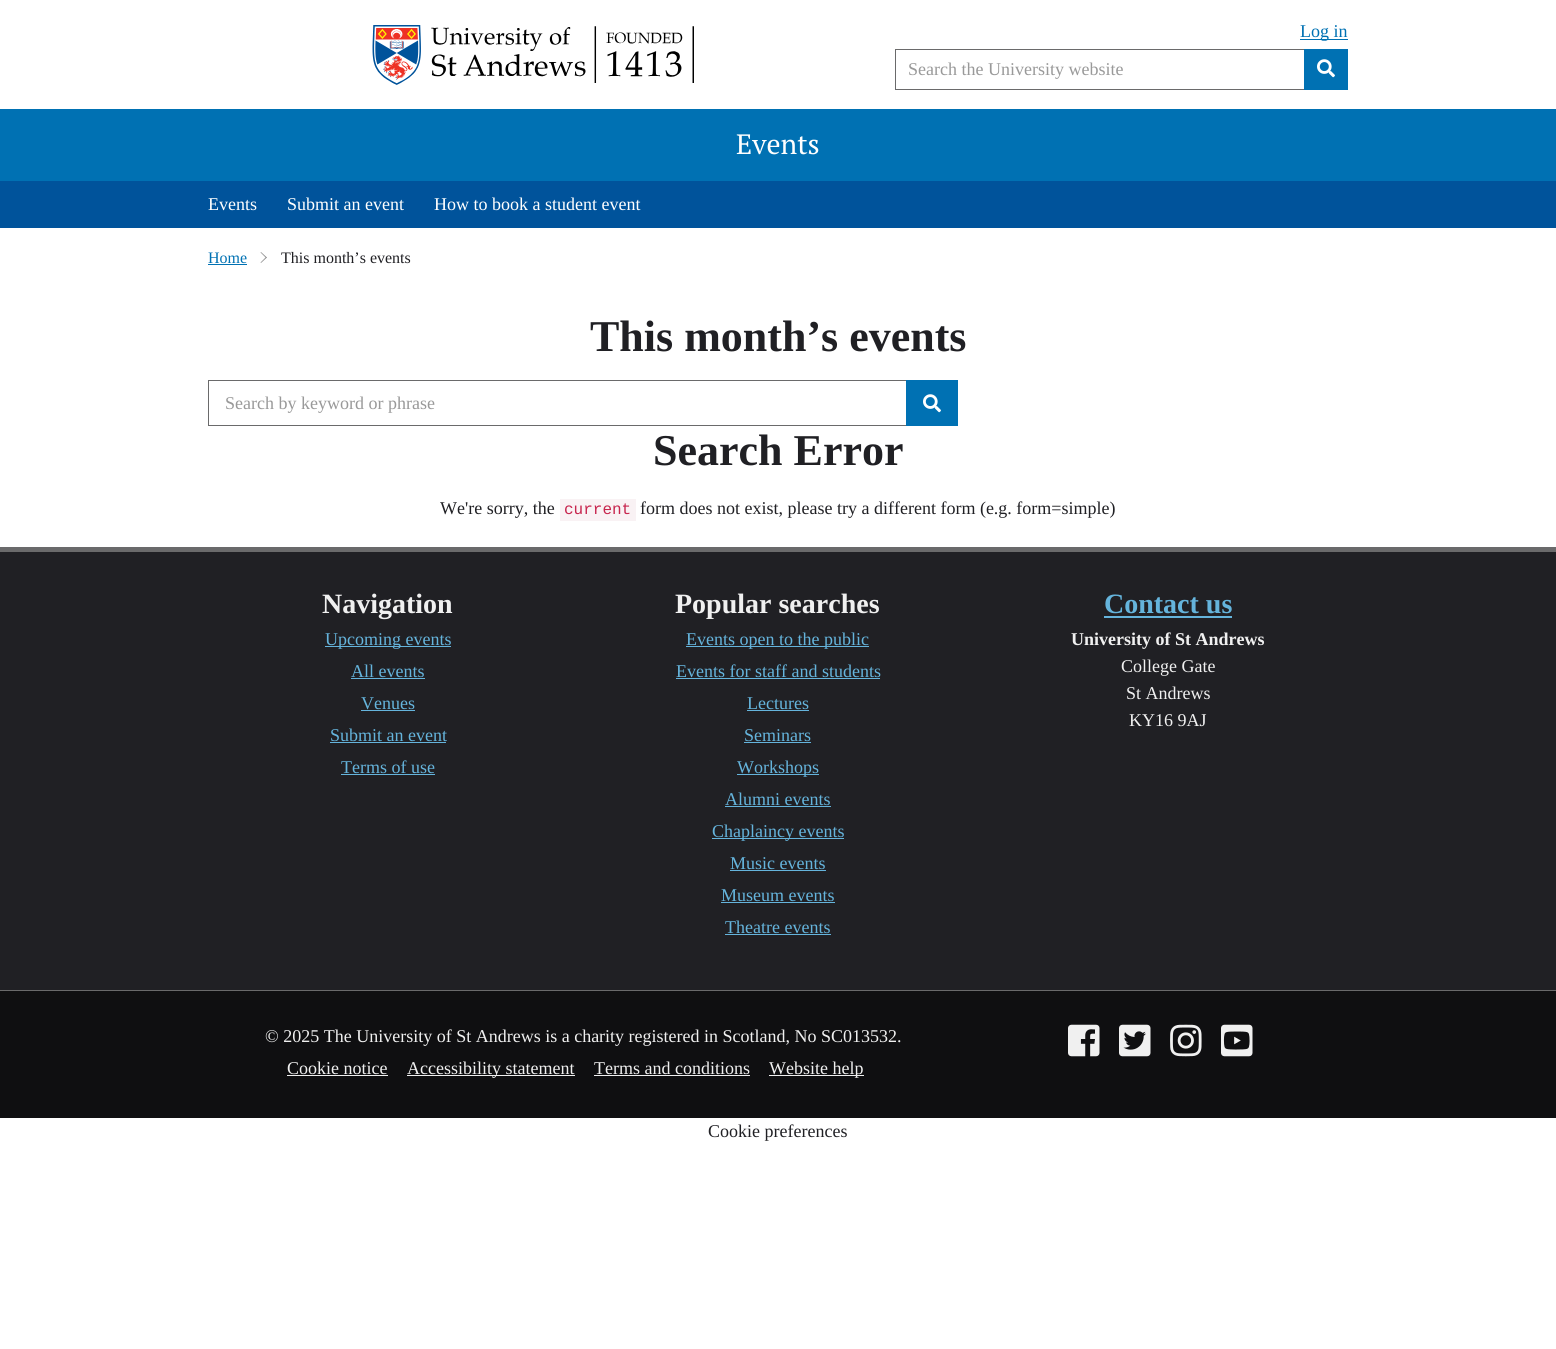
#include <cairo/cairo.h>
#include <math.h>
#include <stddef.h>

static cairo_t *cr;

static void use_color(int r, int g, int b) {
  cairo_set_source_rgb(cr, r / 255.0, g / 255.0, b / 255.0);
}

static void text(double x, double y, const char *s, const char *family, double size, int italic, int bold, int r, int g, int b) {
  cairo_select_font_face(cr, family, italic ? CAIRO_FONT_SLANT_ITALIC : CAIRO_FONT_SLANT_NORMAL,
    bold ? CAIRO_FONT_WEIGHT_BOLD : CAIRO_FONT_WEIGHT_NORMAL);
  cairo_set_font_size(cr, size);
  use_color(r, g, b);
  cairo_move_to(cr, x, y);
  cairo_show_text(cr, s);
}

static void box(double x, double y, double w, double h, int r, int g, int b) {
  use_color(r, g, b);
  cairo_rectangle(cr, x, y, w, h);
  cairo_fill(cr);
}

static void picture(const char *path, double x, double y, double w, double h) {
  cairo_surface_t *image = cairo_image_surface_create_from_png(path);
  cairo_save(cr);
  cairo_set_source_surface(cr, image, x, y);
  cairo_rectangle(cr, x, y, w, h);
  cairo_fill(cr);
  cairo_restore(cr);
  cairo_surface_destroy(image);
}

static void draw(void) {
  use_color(255, 255, 255);
  cairo_paint(cr);
  picture("img_01.png", 372, 25, 322, 60);
  box(1300, 39, 48, 1, 0, 113, 179);
  cairo_rectangle(cr, 895.5, 49.5, 409, 40);
  use_color(106, 106, 107);
  cairo_set_line_width(cr, 1);
  cairo_stroke(cr);
  box(1304, 49, 44, 41, 0, 113, 179);
  picture("img_02.png", 1317, 59, 18, 19);
  box(0, 109, 1556, 72, 0, 113, 179);
  box(0, 181, 1556, 47, 0, 83, 155);
  box(208, 264, 39, 1, 0, 113, 179);
  use_color(148, 148, 148);
  cairo_new_path(cr);
  cairo_move_to(cr, 261, 252);
  cairo_line_to(cr, 267, 257.5);
  cairo_line_to(cr, 266, 258);
  cairo_line_to(cr, 260.5, 252.5);
  cairo_close_path(cr);
  cairo_fill(cr);
  cairo_new_path(cr);
  cairo_move_to(cr, 266, 257);
  cairo_line_to(cr, 267, 257.5);
  cairo_line_to(cr, 261, 263);
  cairo_line_to(cr, 260.5, 262.5);
  cairo_close_path(cr);
  cairo_fill(cr);
  cairo_rectangle(cr, 208.5, 380.5, 698, 45);
  use_color(106, 106, 107);
  cairo_stroke(cr);
  box(906, 380, 52, 46, 0, 113, 179);
  picture("img_02.png", 923, 394, 18, 19);
  box(560, 499, 76, 22, 249, 242, 244);
  box(0, 552, 1556, 438, 32, 32, 36);
  box(0, 547, 1556, 5, 106, 106, 107);
  box(325, 646, 126, 1, 101, 180, 220);
  box(351, 678, 74, 1, 101, 180, 220);
  box(361, 710, 54, 1, 101, 180, 220);
  box(330, 742, 116, 1, 101, 180, 220);
  box(341, 774, 94, 1, 101, 180, 220);
  box(686, 646, 183, 1, 101, 180, 220);
  box(676, 678, 204, 1, 101, 180, 220);
  box(747, 710, 62, 1, 101, 180, 220);
  box(744, 742, 67, 1, 101, 180, 220);
  box(737, 774, 82, 1, 101, 180, 220);
  box(725, 806, 106, 1, 101, 180, 220);
  box(712, 838, 132, 1, 101, 180, 220);
  box(730, 870, 96, 1, 101, 180, 220);
  box(721, 902, 114, 1, 101, 180, 220);
  box(725, 934, 106, 1, 101, 180, 220);
  box(1104, 616, 128, 2, 101, 180, 220);
  box(0, 991, 1556, 127, 15, 15, 17);
  box(0, 990, 1556, 1, 106, 106, 107);
  box(287, 1075, 101, 1, 240, 240, 240);
  box(407, 1075, 168, 1, 240, 240, 240);
  box(594, 1075, 156, 1, 240, 240, 240);
  box(769, 1075, 95, 1, 240, 240, 240);
  picture("img_03.png", 1068, 1024, 32, 33);
  picture("img_04.png", 1119, 1024, 32, 33);
  picture("img_05.png", 1170, 1024, 32, 33);
  picture("img_06.png", 1221, 1024, 32, 33);
  text(1300, 37, "Log in", "Liberation Serif", 18, 0, 0, 0, 113, 179);
  text(908, 75, "Search the University website", "Liberation Serif", 18, 0, 0, 153, 153, 153);
  text(736, 154, "Events", "PT Serif", 28, 0, 0, 255, 255, 255);
  text(208, 210, "Events", "Liberation Serif", 18, 0, 0, 255, 255, 255);
  text(287, 210, "Submit an event", "Liberation Serif", 18, 0, 0, 255, 255, 255);
  text(434, 210, "How to book a student event", "Liberation Serif", 18, 0, 0, 255, 255, 255);
  text(208, 263, "Home", "Liberation Serif", 16, 0, 0, 0, 113, 179);
  text(281, 263, "This month’s events", "Liberation Serif", 16, 0, 0, 32, 32, 36);
  text(590, 351, "This month’s events", "Liberation Serif", 44, 0, 1, 32, 32, 36);
  text(225, 409, "Search by keyword or phrase", "Liberation Serif", 18, 0, 0, 153, 153, 153);
  text(653, 465, "Search Error", "Liberation Serif", 44, 0, 1, 32, 32, 36);
  text(440, 514, "We're sorry, the", "Liberation Serif", 18, 0, 0, 32, 32, 36);
  text(564, 514, "current", "Liberation Mono", 16, 0, 0, 199, 37, 78);
  text(640, 514, "form does not exist, please try a different form (e.g. form=simple)", "Liberation Serif", 18, 0, 0, 32, 32, 36);
  text(322, 613, "Navigation", "Liberation Serif", 28, 0, 1, 240, 240, 240);
  text(325, 645, "Upcoming events", "Liberation Serif", 18, 0, 0, 101, 180, 220);
  text(351, 677, "All events", "Liberation Serif", 18, 0, 0, 101, 180, 220);
  text(361, 709, "Venues", "Liberation Serif", 18, 0, 0, 101, 180, 220);
  text(330, 741, "Submit an event", "Liberation Serif", 18, 0, 0, 101, 180, 220);
  text(341, 773, "Terms of use", "Liberation Serif", 18, 0, 0, 101, 180, 220);
  text(675, 613, "Popular searches", "Liberation Serif", 28, 0, 1, 240, 240, 240);
  text(686, 645, "Events open to the public", "Liberation Serif", 18, 0, 0, 101, 180, 220);
  text(676, 677, "Events for staff and students", "Liberation Serif", 18, 0, 0, 101, 180, 220);
  text(747, 709, "Lectures", "Liberation Serif", 18, 0, 0, 101, 180, 220);
  text(744, 741, "Seminars", "Liberation Serif", 18, 0, 0, 101, 180, 220);
  text(737, 773, "Workshops", "Liberation Serif", 18, 0, 0, 101, 180, 220);
  text(725, 805, "Alumni events", "Liberation Serif", 18, 0, 0, 101, 180, 220);
  text(712, 837, "Chaplaincy events", "Liberation Serif", 18, 0, 0, 101, 180, 220);
  text(730, 869, "Music events", "Liberation Serif", 18, 0, 0, 101, 180, 220);
  text(721, 901, "Museum events", "Liberation Serif", 18, 0, 0, 101, 180, 220);
  text(725, 933, "Theatre events", "Liberation Serif", 18, 0, 0, 101, 180, 220);
  text(1104, 613, "Contact us", "Liberation Serif", 28, 0, 1, 101, 180, 220);
  text(1071, 645, "University of St Andrews", "Liberation Serif", 18, 0, 1, 240, 240, 240);
  text(1121, 672, "College Gate", "Liberation Serif", 18, 0, 0, 240, 240, 240);
  text(1126, 699, "St Andrews", "Liberation Serif", 18, 0, 0, 240, 240, 240);
  text(1129, 726, "KY16 9AJ", "Liberation Serif", 18, 0, 0, 240, 240, 240);
  text(265, 1042, "© 2025 The University of St Andrews is a charity registered in Scotland, No SC013532.", "Liberation Serif", 18, 0, 0, 240, 240, 240);
  text(287, 1074, "Cookie notice", "Liberation Serif", 18, 0, 0, 240, 240, 240);
  text(407, 1074, "Accessibility statement", "Liberation Serif", 18, 0, 0, 240, 240, 240);
  text(594, 1074, "Terms and conditions", "Liberation Serif", 18, 0, 0, 240, 240, 240);
  text(769, 1074, "Website help", "Liberation Serif", 18, 0, 0, 240, 240, 240);
  text(708, 1137, "Cookie preferences", "Liberation Serif", 18, 0, 0, 32, 32, 36);
}

int main(void) {
  cairo_surface_t *surface = cairo_image_surface_create(CAIRO_FORMAT_RGB24, 1556, 1349);
  cr = cairo_create(surface);
  cairo_font_options_t *options = cairo_font_options_create();
  cairo_font_options_set_hint_metrics(options, CAIRO_HINT_METRICS_OFF);
  cairo_font_options_set_hint_style(options, CAIRO_HINT_STYLE_NONE);
  cairo_set_font_options(cr, options);
  cairo_set_miter_limit(cr, 4);
  draw();
  cairo_surface_write_to_png(surface, "out.png");
  cairo_font_options_destroy(options);
  cairo_destroy(cr);
  cairo_surface_destroy(surface);
  return 0;
}
